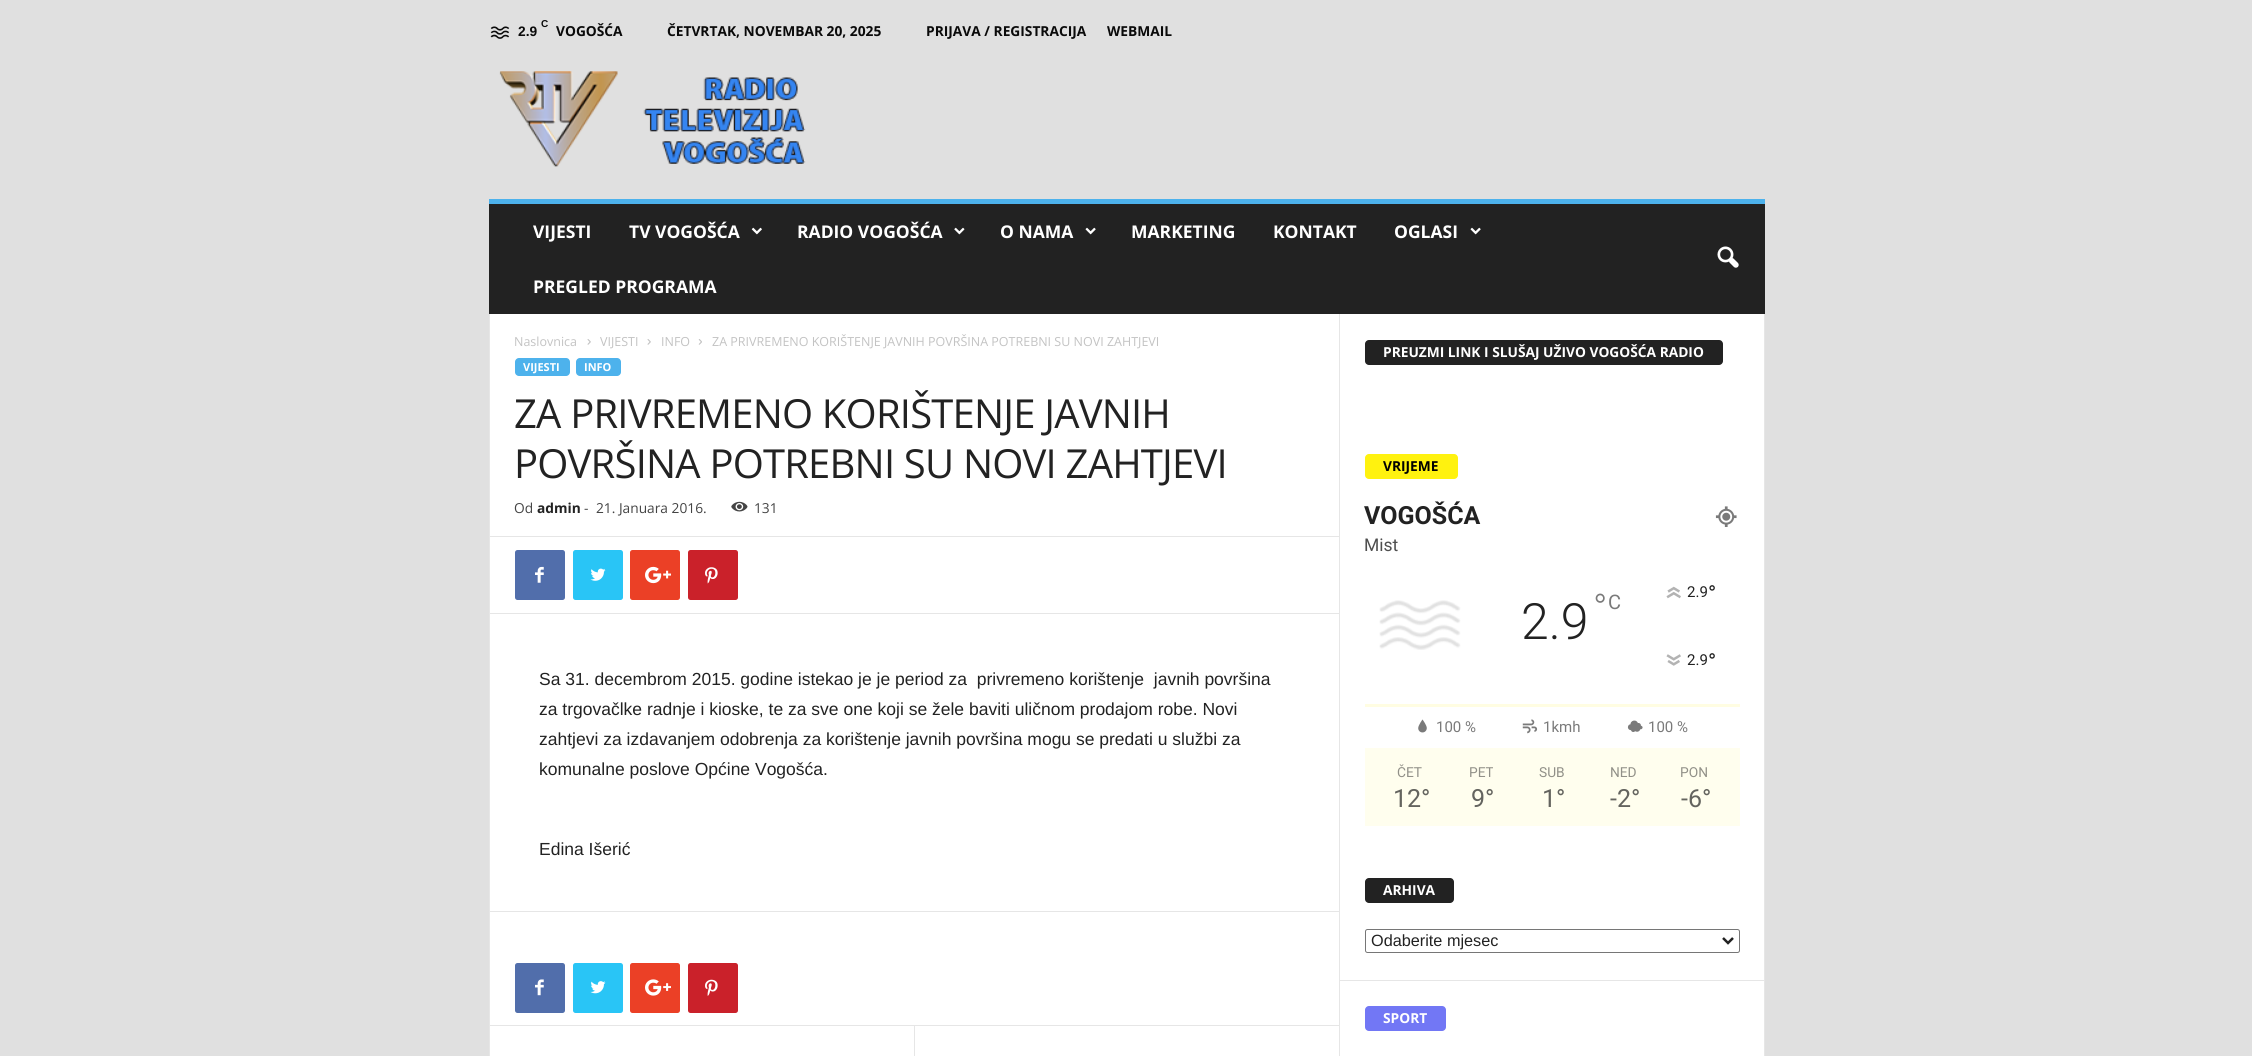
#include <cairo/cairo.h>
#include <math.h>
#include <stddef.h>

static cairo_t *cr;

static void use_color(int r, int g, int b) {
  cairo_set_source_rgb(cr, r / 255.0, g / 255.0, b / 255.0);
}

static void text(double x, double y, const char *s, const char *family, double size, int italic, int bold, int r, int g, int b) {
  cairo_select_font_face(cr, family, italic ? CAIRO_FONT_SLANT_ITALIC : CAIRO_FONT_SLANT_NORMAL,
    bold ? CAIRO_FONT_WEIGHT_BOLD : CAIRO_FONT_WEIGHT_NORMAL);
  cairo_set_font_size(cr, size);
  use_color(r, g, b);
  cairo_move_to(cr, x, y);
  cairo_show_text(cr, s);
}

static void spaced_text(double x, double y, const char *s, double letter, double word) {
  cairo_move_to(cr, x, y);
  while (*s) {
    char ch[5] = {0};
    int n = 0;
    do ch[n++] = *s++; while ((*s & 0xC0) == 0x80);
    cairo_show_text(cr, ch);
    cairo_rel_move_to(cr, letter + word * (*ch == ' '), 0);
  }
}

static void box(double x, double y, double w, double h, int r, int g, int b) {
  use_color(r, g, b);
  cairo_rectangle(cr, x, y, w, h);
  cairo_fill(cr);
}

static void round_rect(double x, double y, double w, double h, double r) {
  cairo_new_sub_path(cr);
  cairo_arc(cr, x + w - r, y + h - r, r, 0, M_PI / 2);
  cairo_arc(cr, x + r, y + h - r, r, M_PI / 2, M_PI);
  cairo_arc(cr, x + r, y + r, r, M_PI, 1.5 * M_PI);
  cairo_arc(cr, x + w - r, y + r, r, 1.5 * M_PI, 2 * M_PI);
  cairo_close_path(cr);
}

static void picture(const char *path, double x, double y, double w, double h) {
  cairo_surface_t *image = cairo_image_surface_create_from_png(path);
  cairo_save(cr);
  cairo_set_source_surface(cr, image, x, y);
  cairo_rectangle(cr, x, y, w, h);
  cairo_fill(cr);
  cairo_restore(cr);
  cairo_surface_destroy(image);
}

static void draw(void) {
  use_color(224, 224, 224);
  cairo_paint(cr);
  picture("img_01.png", 490, 26, 20, 13);
  picture("img_02.png", 499, 71, 307, 96);
  box(489, 204, 1276, 110, 34, 34, 34);
  box(489, 199, 1276, 5, 77, 178, 236);
  picture("img_03.png", 751, 227, 11, 8);
  picture("img_04.png", 954, 227, 11, 8);
  picture("img_05.png", 1085, 227, 11, 8);
  picture("img_05.png", 1470, 227, 11, 8);
  picture("img_06.png", 1717, 246, 22, 22);
  box(490, 314, 1274, 742, 255, 255, 255);
  box(489, 314, 1, 742, 230, 230, 230);
  picture("img_07.png", 587, 339, 4, 6);
  picture("img_07.png", 647, 339, 4, 6);
  picture("img_08.png", 698, 339, 4, 6);
  use_color(77, 178, 236);
  round_rect(515, 358, 55, 18, 4);
  cairo_fill(cr);
  round_rect(576, 358, 45, 18, 4);
  cairo_fill(cr);
  picture("img_09.png", 731, 501, 17, 11);
  box(490, 536, 849, 1, 230, 230, 230);
  use_color(81, 110, 171);
  round_rect(515, 550, 50, 50, 2.5);
  cairo_fill(cr);
  picture("img_10.png", 535, 566, 9, 17);
  use_color(41, 197, 246);
  round_rect(573, 550, 50, 50, 2.5);
  cairo_fill(cr);
  picture("img_11.png", 590, 568, 16, 13);
  use_color(235, 64, 38);
  round_rect(630, 550, 50, 50, 2.5);
  cairo_fill(cr);
  picture("img_12.png", 645, 566, 26, 18);
  use_color(202, 33, 42);
  round_rect(688, 550, 50, 50, 2.5);
  cairo_fill(cr);
  picture("img_13.png", 705, 567, 13, 17);
  box(490, 613, 849, 1, 230, 230, 230);
  box(490, 911, 849, 1, 230, 230, 230);
  use_color(81, 110, 171);
  round_rect(515, 963, 50, 50, 2.5);
  cairo_fill(cr);
  picture("img_14.png", 535, 979, 9, 17);
  use_color(41, 197, 246);
  round_rect(573, 963, 50, 50, 2.5);
  cairo_fill(cr);
  picture("img_15.png", 590, 981, 16, 13);
  use_color(235, 64, 38);
  round_rect(630, 963, 50, 50, 2.5);
  cairo_fill(cr);
  picture("img_16.png", 645, 979, 26, 17);
  use_color(202, 33, 42);
  round_rect(688, 963, 50, 50, 2.5);
  cairo_fill(cr);
  picture("img_17.png", 705, 979, 13, 17);
  box(490, 1025, 849, 1, 230, 230, 230);
  box(914, 1026, 1, 30, 230, 230, 230);
  box(1339, 314, 1, 742, 230, 230, 230);
  use_color(34, 34, 34);
  round_rect(1365, 340, 358, 25, 4);
  cairo_fill(cr);
  use_color(255, 242, 15);
  round_rect(1365, 454, 93, 25, 4);
  cairo_fill(cr);
  picture("img_18.png", 1715, 506, 22, 21);
  picture("img_19.png", 1379, 600, 82, 50);
  picture("img_20.png", 1666, 586, 15, 13);
  picture("img_21.png", 1666, 654, 15, 12);
  box(1365, 704, 375, 3, 255, 253, 226);
  picture("img_22.png", 1418, 719, 9, 14);
  picture("img_23.png", 1522, 719, 16, 15);
  picture("img_24.png", 1627, 720, 16, 12);
  box(1365, 748, 375, 78, 255, 254, 238);
  use_color(34, 34, 34);
  round_rect(1365, 878, 89, 25, 4);
  cairo_fill(cr);
  round_rect(1365.5, 929.5, 374, 23, 2);
  use_color(118, 118, 118);
  cairo_set_line_width(cr, 1);
  cairo_stroke(cr);
  cairo_new_path(cr);
  cairo_move_to(cr, 1723, 938);
  cairo_line_to(cr, 1728, 943);
  cairo_line_to(cr, 1733, 938);
  use_color(34, 34, 34);
  cairo_set_line_width(cr, 2.5);
  cairo_stroke(cr);
  box(1340, 980, 424, 1, 230, 230, 230);
  use_color(114, 119, 245);
  round_rect(1365, 1006, 81, 25, 4);
  cairo_fill(cr);
  box(1764, 314, 1, 742, 230, 230, 230);
  text(541, 27, "C", "Liberation Sans", 10, 0, 1, 10, 10, 10);
  text(518, 36, "2.9", "Liberation Sans", 13.75, 0, 1, 10, 10, 10);
  text(556, 36, "VOGOŠĆA", "Open Sans", 13.75, 0, 1, 10, 10, 10);
  text(667, 36, "ČETVRTAK, NOVEMBAR 20, 2025", "Open Sans", 13.75, 0, 1, 10, 10, 10);
  text(926, 36, "PRIJAVA / REGISTRACIJA", "Open Sans", 13.75, 0, 1, 10, 10, 10);
  text(1107, 36, "WEBMAIL", "Open Sans", 13.75, 0, 1, 10, 10, 10);
  text(533, 238, "VIJESTI", "Open Sans", 17.5, 0, 1, 255, 255, 255);
  text(629, 238, "TV VOGOŠĆA", "Open Sans", 17.5, 0, 1, 255, 255, 255);
  text(797, 238, "RADIO VOGOŠĆA", "Open Sans", 17.5, 0, 1, 255, 255, 255);
  text(1000, 238, "O NAMA", "Open Sans", 17.5, 0, 1, 255, 255, 255);
  text(1131, 238, "MARKETING", "Open Sans", 17.5, 0, 1, 255, 255, 255);
  text(1273, 238, "KONTAKT", "Open Sans", 17.5, 0, 1, 255, 255, 255);
  text(1394, 238, "OGLASI", "Open Sans", 17.5, 0, 1, 255, 255, 255);
  text(533, 293, "PREGLED PROGRAMA", "Open Sans", 17.5, 0, 1, 255, 255, 255);
  text(514, 346, "Naslovnica", "Open Sans", 12.5, 0, 0, 195, 195, 195);
  text(600, 346, "VIJESTI", "Open Sans", 12.5, 0, 0, 195, 195, 195);
  text(661, 346, "INFO", "Open Sans", 12.5, 0, 0, 195, 195, 195);
  text(712, 346, "ZA PRIVREMENO KORIŠTENJE JAVNIH POVRŠINA POTREBNI SU NOVI ZAHTJEVI", "Open Sans", 12.5, 0, 0, 195, 195, 195);
  text(523, 371, "VIJESTI", "Open Sans", 11, 0, 1, 255, 255, 255);
  text(584, 371, "INFO", "Open Sans", 11, 0, 1, 255, 255, 255);
  cairo_select_font_face(cr, "Open Sans", CAIRO_FONT_SLANT_NORMAL, CAIRO_FONT_WEIGHT_NORMAL);
  cairo_set_font_size(cr, 40);
  use_color(34, 34, 34);
  spaced_text(514, 428, "ZA PRIVREMENO KORIŠTENJE JAVNIH", -0.8, 0);
  spaced_text(514, 478, "POVRŠINA POTREBNI SU NOVI ZAHTJEVI", -0.8, 0);
  text(514, 513, "Od", "Open Sans", 13.75, 0, 0, 68, 68, 68);
  text(537, 513, "admin", "Open Sans", 13.75, 0, 1, 34, 34, 34);
  text(584, 513, "-", "Open Sans", 13.75, 0, 0, 68, 68, 68);
  text(596, 513, "21. Januara 2016.", "Open Sans", 13.75, 0, 0, 68, 68, 68);
  text(754, 513, "131", "Open Sans", 13.75, 0, 0, 68, 68, 68);
  text(539, 685, "Sa 31. decembrom 2015. godine istekao je je period za  privremeno korištenje  javnih površina", "Liberation Sans", 17.5, 0, 0, 34, 34, 34);
  text(539, 715, "za trgovačlke radnje i kioske, te za sve one koji se žele baviti uličnom prodajom robe. Novi", "Liberation Sans", 17.5, 0, 0, 34, 34, 34);
  text(539, 745, "zahtjevi za izdavanjem odobrenja za korištenje javnih površina mogu se predati u službi za", "Liberation Sans", 17.5, 0, 0, 34, 34, 34);
  text(539, 775, "komunalne poslove Općine Vogošća.", "Liberation Sans", 17.5, 0, 0, 34, 34, 34);
  text(539, 855, "Edina Išerić", "Liberation Sans", 17.5, 0, 0, 34, 34, 34);
  text(1383, 357, "PREUZMI LINK I SLUŠAJ UŽIVO VOGOŠĆA RADIO", "Open Sans", 13.75, 0, 1, 255, 255, 255);
  text(1383, 471, "VRIJEME", "Open Sans", 13.75, 0, 1, 0, 0, 0);
  text(1364, 524, "VOGOŠĆA", "Roboto", 25, 0, 1, 34, 34, 34);
  text(1364, 551, "Mist", "Roboto", 17.5, 0, 0, 78, 78, 78);
  text(1521, 639, "2.9", "Roboto Light", 50, 0, 0, 34, 34, 34);
  text(1593, 621, "°", "Roboto Light", 38, 0, 0, 122, 122, 122);
  text(1608, 609, "C", "Roboto", 20, 0, 0, 122, 122, 122);
  text(1687, 597, "2.9", "Roboto", 15, 0, 0, 34, 34, 34);
  text(1708, 601, "°", "Roboto", 22, 0, 0, 34, 34, 34);
  text(1687, 665, "2.9", "Roboto", 15, 0, 0, 34, 34, 34);
  text(1708, 669, "°", "Roboto", 22, 0, 0, 34, 34, 34);
  text(1436, 732, "100 %", "Roboto", 15, 0, 0, 122, 122, 122);
  text(1543, 732, "1kmh", "Roboto", 15, 0, 0, 122, 122, 122);
  text(1648, 732, "100 %", "Roboto", 15, 0, 0, 122, 122, 122);
  text(1397, 777, "ČET", "Roboto", 13.75, 0, 0, 145, 144, 136);
  text(1393, 807, "12°", "Roboto", 25, 0, 0, 100, 100, 95);
  text(1469, 777, "PET", "Roboto", 13.75, 0, 0, 145, 144, 136);
  text(1471, 807, "9°", "Roboto", 25, 0, 0, 100, 100, 95);
  text(1539, 777, "SUB", "Roboto", 13.75, 0, 0, 145, 144, 136);
  text(1542, 807, "1°", "Roboto", 25, 0, 0, 100, 100, 95);
  text(1610, 777, "NED", "Roboto", 13.75, 0, 0, 145, 144, 136);
  text(1610, 807, "-2°", "Roboto", 25, 0, 0, 100, 100, 95);
  text(1680, 777, "PON", "Roboto", 13.75, 0, 0, 145, 144, 136);
  text(1681, 807, "-6°", "Roboto", 25, 0, 0, 100, 100, 95);
  text(1383, 895, "ARHIVA", "Open Sans", 13.75, 0, 1, 255, 255, 255);
  text(1371, 946, "Odaberite mjesec", "Liberation Sans", 16.25, 0, 0, 34, 34, 34);
  text(1383, 1023, "SPORT", "Open Sans", 13.75, 0, 1, 255, 255, 255);
}

int main(void) {
  cairo_surface_t *surface = cairo_image_surface_create(CAIRO_FORMAT_RGB24, 2252, 1056);
  cr = cairo_create(surface);
  cairo_font_options_t *options = cairo_font_options_create();
  cairo_font_options_set_hint_metrics(options, CAIRO_HINT_METRICS_OFF);
  cairo_font_options_set_hint_style(options, CAIRO_HINT_STYLE_NONE);
  cairo_set_font_options(cr, options);
  cairo_set_miter_limit(cr, 4);
  draw();
  cairo_surface_write_to_png(surface, "out.png");
  cairo_font_options_destroy(options);
  cairo_destroy(cr);
  cairo_surface_destroy(surface);
  return 0;
}
